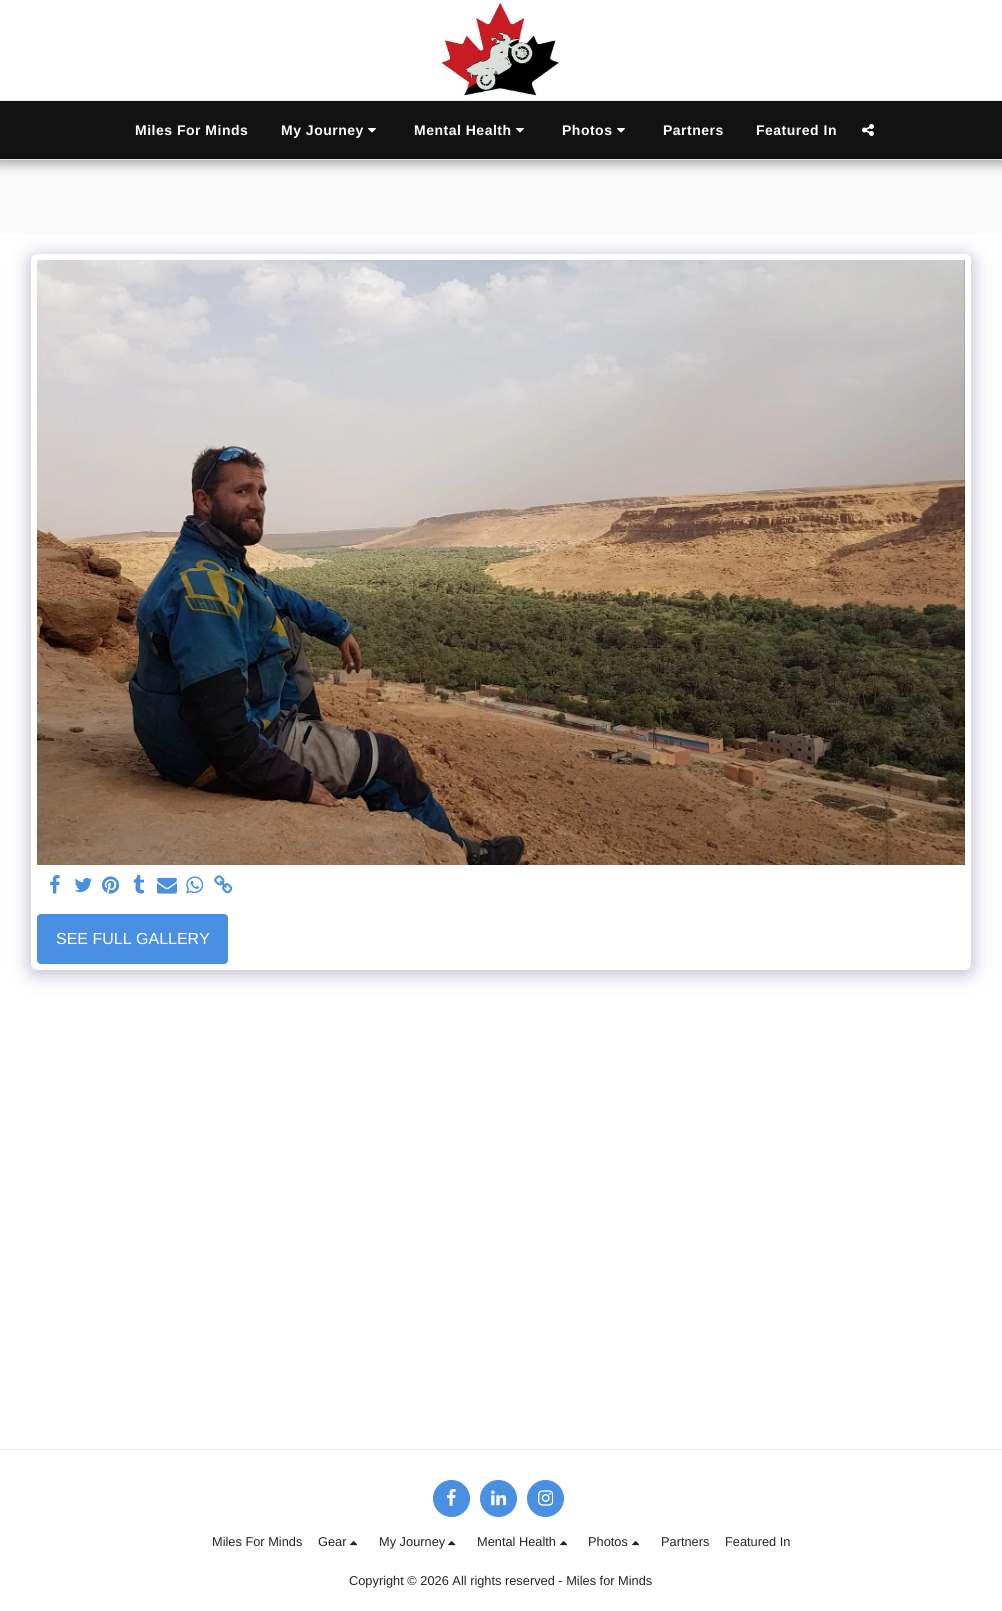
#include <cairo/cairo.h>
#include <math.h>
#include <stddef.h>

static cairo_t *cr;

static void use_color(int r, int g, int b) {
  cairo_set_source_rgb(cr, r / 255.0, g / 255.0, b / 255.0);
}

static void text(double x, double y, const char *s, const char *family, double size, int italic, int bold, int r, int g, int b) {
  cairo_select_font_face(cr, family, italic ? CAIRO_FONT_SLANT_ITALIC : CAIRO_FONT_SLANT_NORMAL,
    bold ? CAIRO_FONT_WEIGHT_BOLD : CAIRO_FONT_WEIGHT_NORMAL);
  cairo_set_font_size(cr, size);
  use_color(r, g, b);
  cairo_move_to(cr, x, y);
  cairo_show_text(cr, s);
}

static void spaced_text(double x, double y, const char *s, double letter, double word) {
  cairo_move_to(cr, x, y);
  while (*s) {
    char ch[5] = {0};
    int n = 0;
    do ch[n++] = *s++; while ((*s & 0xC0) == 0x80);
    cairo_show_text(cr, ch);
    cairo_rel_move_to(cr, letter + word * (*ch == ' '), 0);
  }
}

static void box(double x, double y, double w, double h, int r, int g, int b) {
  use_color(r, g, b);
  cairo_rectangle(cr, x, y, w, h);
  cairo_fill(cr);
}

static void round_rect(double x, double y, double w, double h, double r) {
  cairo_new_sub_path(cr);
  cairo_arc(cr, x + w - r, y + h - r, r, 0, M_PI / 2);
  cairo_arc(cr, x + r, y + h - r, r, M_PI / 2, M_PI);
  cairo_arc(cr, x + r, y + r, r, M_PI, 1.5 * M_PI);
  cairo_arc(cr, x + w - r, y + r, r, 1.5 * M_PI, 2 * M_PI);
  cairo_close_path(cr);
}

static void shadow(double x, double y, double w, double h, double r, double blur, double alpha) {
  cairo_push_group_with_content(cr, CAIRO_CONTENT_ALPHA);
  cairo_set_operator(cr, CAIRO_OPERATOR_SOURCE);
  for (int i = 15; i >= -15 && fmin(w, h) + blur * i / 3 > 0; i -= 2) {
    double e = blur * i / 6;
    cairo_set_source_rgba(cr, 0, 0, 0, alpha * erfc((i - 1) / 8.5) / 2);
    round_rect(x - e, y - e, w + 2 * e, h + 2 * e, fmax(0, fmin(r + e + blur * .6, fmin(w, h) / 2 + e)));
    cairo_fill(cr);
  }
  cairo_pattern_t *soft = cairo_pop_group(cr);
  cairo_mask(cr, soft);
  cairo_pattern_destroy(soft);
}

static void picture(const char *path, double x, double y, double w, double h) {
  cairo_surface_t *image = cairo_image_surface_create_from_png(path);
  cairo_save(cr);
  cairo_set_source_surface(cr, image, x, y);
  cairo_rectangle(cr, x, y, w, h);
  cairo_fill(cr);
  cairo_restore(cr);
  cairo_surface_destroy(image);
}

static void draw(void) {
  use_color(255, 255, 255);
  cairo_paint(cr);
  box(0, 160, 1002, 74, 250, 250, 250);
  use_color(0, 0, 0);
  shadow(-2, 0, 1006, 164, 0, 6, 0.35);
  box(0, 159, 1002, 1, 235, 235, 235);
  box(0, 0, 1002, 100, 255, 255, 255);
  picture("img_01.png", 440, 1, 119, 95);
  box(0, 101, 1002, 58, 18, 18, 18);
  box(0, 100, 1002, 1, 235, 235, 235);
  picture("img_02.png", 368, 128, 8, 5);
  picture("img_02.png", 516, 128, 8, 5);
  picture("img_02.png", 617, 128, 8, 5);
  picture("img_03.png", 862, 124, 12, 12);
  use_color(77, 63, 122);
  shadow(31, 257, 940, 716, 6, 10, 0.4);
  use_color(255, 255, 255);
  round_rect(31, 254, 940, 716, 6);
  cairo_fill(cr);
  picture("img_04.png", 37, 260, 928, 605);
  picture("img_05.png", 50, 875, 10, 19);
  picture("img_06.png", 74, 877, 18, 16);
  picture("img_07.png", 102, 876, 18, 18);
  picture("img_08.png", 133, 875, 12, 19);
  picture("img_09.png", 157, 877, 20, 17);
  picture("img_10.png", 186, 876, 18, 18);
  picture("img_11.png", 214, 875, 18, 19);
  use_color(74, 144, 226);
  round_rect(37.5, 914.5, 190, 49, 3.5);
  cairo_fill_preserve(cr);
  cairo_set_line_width(cr, 1);
  cairo_stroke(cr);
  box(0, 1449, 1002, 1, 235, 235, 235);
  use_color(74, 144, 226);
  cairo_arc(cr, 451.5, 1498.5, 18, 0, 2 * M_PI);
  cairo_fill_preserve(cr);
  cairo_stroke(cr);
  picture("img_12.png", 446, 1489, 10, 17);
  cairo_arc(cr, 498.5, 1498.5, 18, 0, 2 * M_PI);
  cairo_fill_preserve(cr);
  cairo_stroke(cr);
  picture("img_13.png", 491, 1490, 15, 16);
  cairo_arc(cr, 545.5, 1498.5, 18, 0, 2 * M_PI);
  cairo_fill_preserve(cr);
  cairo_stroke(cr);
  picture("img_14.png", 538, 1490, 15, 16);
  picture("img_15.png", 350, 1541, 7, 5);
  picture("img_16.png", 448, 1541, 8, 5);
  picture("img_15.png", 560, 1541, 7, 5);
  picture("img_15.png", 632, 1541, 7, 5);
  cairo_select_font_face(cr, "Liberation Sans", CAIRO_FONT_SLANT_NORMAL, CAIRO_FONT_WEIGHT_BOLD);
  cairo_set_font_size(cr, 14);
  use_color(255, 255, 255);
  spaced_text(135, 135, "Miles For Minds", 0.5, 0);
  spaced_text(281, 135, "My Journey", 0.5, 0);
  spaced_text(414, 135, "Mental Health", 0.5, 0);
  spaced_text(562, 135, "Photos", 0.5, 0);
  spaced_text(663, 135, "Partners", 0.5, 0);
  spaced_text(756, 135, "Featured In", 0.5, 0);
  text(56, 944, "SEE FULL GALLERY", "Liberation Sans", 16, 0, 0, 255, 255, 255);
  text(212, 1546, "Miles For Minds", "Liberation Sans", 12.8, 0, 0, 37, 37, 37);
  text(318, 1546, "Gear", "Liberation Sans", 12.8, 0, 0, 37, 37, 37);
  text(379, 1546, "My Journey", "Liberation Sans", 12.8, 0, 0, 37, 37, 37);
  text(477, 1546, "Mental Health", "Liberation Sans", 12.8, 0, 0, 37, 37, 37);
  text(588, 1546, "Photos", "Liberation Sans", 12.8, 0, 0, 37, 37, 37);
  text(661, 1546, "Partners", "Liberation Sans", 12.8, 0, 0, 37, 37, 37);
  text(725, 1546, "Featured In", "Liberation Sans", 12.8, 0, 0, 37, 37, 37);
  text(349, 1585, "Copyright © 2026 All rights reserved - Miles for Minds", "Liberation Sans", 12.8, 0, 0, 37, 37, 37);
}

int main(void) {
  cairo_surface_t *surface = cairo_image_surface_create(CAIRO_FORMAT_RGB24, 1002, 1611);
  cr = cairo_create(surface);
  cairo_font_options_t *options = cairo_font_options_create();
  cairo_font_options_set_hint_metrics(options, CAIRO_HINT_METRICS_OFF);
  cairo_font_options_set_hint_style(options, CAIRO_HINT_STYLE_NONE);
  cairo_set_font_options(cr, options);
  cairo_set_miter_limit(cr, 4);
  draw();
  cairo_surface_write_to_png(surface, "out.png");
  cairo_font_options_destroy(options);
  cairo_destroy(cr);
  cairo_surface_destroy(surface);
  return 0;
}
